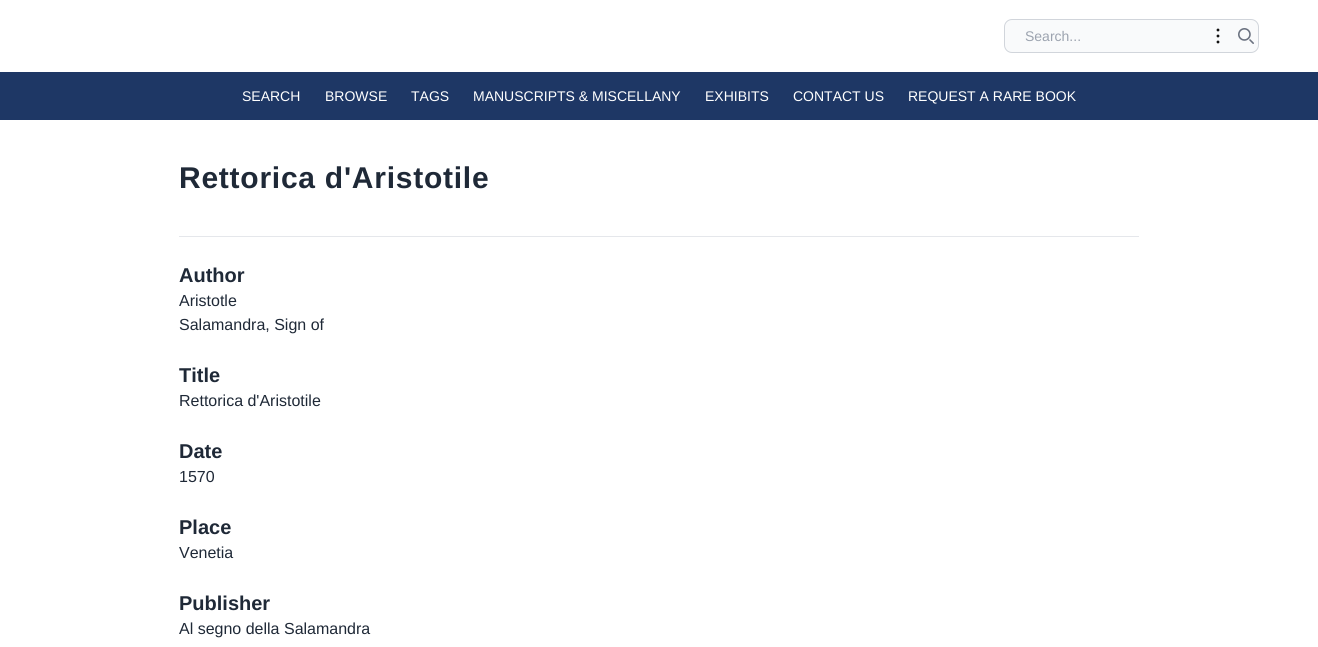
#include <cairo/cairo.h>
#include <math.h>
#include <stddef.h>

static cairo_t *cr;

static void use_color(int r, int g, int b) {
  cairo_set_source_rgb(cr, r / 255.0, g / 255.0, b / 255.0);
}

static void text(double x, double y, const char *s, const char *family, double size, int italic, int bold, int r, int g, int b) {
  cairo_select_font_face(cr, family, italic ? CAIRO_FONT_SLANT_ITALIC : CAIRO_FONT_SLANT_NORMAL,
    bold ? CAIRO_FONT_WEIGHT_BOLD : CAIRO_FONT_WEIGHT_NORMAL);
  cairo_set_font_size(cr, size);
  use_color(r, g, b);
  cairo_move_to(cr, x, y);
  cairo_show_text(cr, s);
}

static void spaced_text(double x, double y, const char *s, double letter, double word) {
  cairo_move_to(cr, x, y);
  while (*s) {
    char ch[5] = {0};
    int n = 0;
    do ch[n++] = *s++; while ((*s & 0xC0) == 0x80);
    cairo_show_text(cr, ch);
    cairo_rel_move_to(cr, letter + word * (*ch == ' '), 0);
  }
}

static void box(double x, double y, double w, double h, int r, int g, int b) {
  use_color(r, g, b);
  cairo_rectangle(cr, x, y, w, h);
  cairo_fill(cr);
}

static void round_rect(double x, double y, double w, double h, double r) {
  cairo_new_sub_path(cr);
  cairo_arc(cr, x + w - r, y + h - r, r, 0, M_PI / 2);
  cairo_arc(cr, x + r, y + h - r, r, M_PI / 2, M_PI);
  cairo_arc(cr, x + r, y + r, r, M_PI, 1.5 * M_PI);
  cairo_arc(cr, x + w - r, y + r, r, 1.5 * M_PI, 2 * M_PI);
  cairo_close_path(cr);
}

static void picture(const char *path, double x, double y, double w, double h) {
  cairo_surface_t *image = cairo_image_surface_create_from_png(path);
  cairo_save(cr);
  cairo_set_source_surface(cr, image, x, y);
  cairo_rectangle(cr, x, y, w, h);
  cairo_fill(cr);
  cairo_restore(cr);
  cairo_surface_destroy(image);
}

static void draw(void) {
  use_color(255, 255, 255);
  cairo_paint(cr);
  use_color(249, 250, 251);
  round_rect(1004.5, 19.5, 254, 33, 7.5);
  cairo_fill_preserve(cr);
  use_color(209, 213, 219);
  cairo_set_line_width(cr, 1);
  cairo_stroke(cr);
  picture("img_01.png", 1216, 28, 4, 16);
  picture("img_02.png", 1238, 28, 16, 16);
  box(0, 72, 1318, 48, 30, 55, 101);
  box(179, 236, 960, 1, 229, 231, 235);
  text(1025, 41, "Search...", "Liberation Sans", 14, 0, 0, 156, 163, 175);
  text(242, 101, "SEARCH", "Liberation Sans", 14, 0, 0, 255, 255, 255);
  text(325, 101, "BROWSE", "Liberation Sans", 14, 0, 0, 255, 255, 255);
  text(411, 101, "TAGS", "Liberation Sans", 14, 0, 0, 255, 255, 255);
  text(473, 101, "MANUSCRIPTS & MISCELLANY", "Liberation Sans", 14, 0, 0, 255, 255, 255);
  text(705, 101, "EXHIBITS", "Liberation Sans", 14, 0, 0, 255, 255, 255);
  text(793, 101, "CONTACT US", "Liberation Sans", 14, 0, 0, 255, 255, 255);
  text(908, 101, "REQUEST A RARE BOOK", "Liberation Sans", 14, 0, 0, 255, 255, 255);
  cairo_select_font_face(cr, "Liberation Sans", CAIRO_FONT_SLANT_NORMAL, CAIRO_FONT_WEIGHT_BOLD);
  cairo_set_font_size(cr, 30);
  use_color(31, 41, 55);
  spaced_text(179, 188, "Rettorica d'Aristotile", 0.75, 0);
  text(179, 282, "Author", "Liberation Sans", 20, 0, 1, 31, 41, 55);
  text(179, 306, "Aristotle", "Liberation Sans", 16, 0, 0, 31, 41, 55);
  text(179, 330, "Salamandra, Sign of", "Liberation Sans", 16, 0, 0, 31, 41, 55);
  text(179, 382, "Title", "Liberation Sans", 20, 0, 1, 31, 41, 55);
  text(179, 406, "Rettorica d'Aristotile", "Liberation Sans", 16, 0, 0, 31, 41, 55);
  text(179, 458, "Date", "Liberation Sans", 20, 0, 1, 31, 41, 55);
  text(179, 482, "1570", "Liberation Sans", 16, 0, 0, 31, 41, 55);
  text(179, 534, "Place", "Liberation Sans", 20, 0, 1, 31, 41, 55);
  text(179, 558, "Venetia", "Liberation Sans", 16, 0, 0, 31, 41, 55);
  text(179, 610, "Publisher", "Liberation Sans", 20, 0, 1, 31, 41, 55);
  text(179, 634, "Al segno della Salamandra", "Liberation Sans", 16, 0, 0, 31, 41, 55);
}

int main(void) {
  cairo_surface_t *surface = cairo_image_surface_create(CAIRO_FORMAT_RGB24, 1318, 647);
  cr = cairo_create(surface);
  cairo_font_options_t *options = cairo_font_options_create();
  cairo_font_options_set_hint_metrics(options, CAIRO_HINT_METRICS_OFF);
  cairo_font_options_set_hint_style(options, CAIRO_HINT_STYLE_NONE);
  cairo_set_font_options(cr, options);
  cairo_set_miter_limit(cr, 4);
  draw();
  cairo_surface_write_to_png(surface, "out.png");
  cairo_font_options_destroy(options);
  cairo_destroy(cr);
  cairo_surface_destroy(surface);
  return 0;
}
